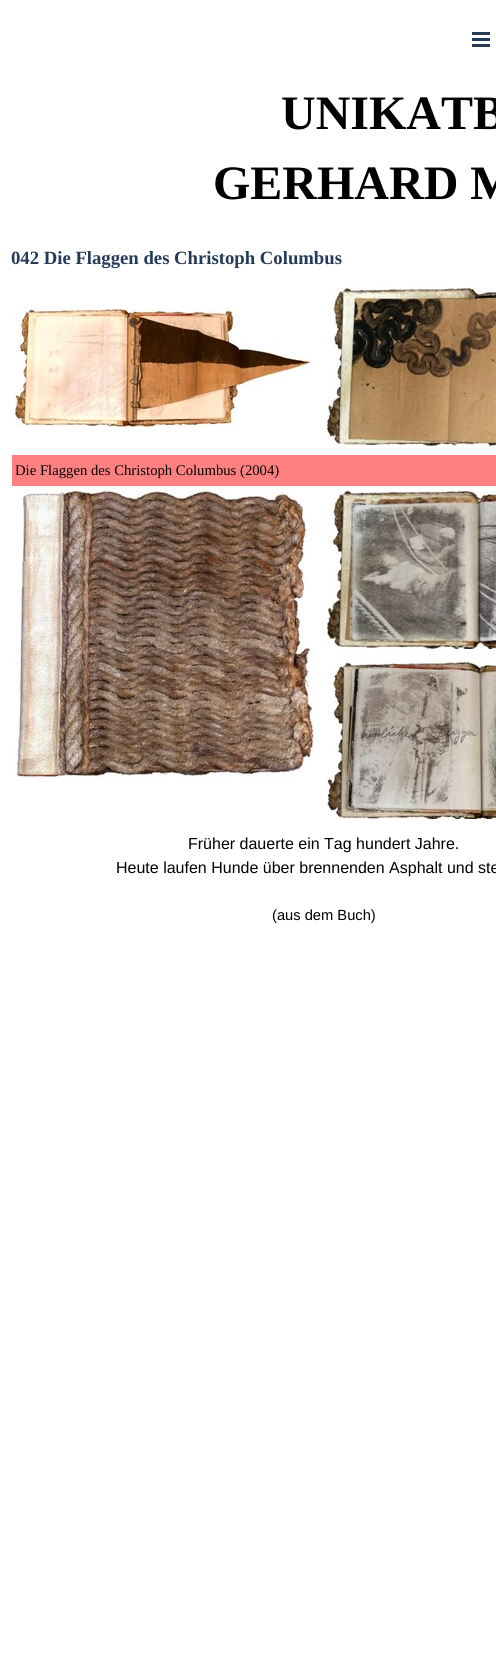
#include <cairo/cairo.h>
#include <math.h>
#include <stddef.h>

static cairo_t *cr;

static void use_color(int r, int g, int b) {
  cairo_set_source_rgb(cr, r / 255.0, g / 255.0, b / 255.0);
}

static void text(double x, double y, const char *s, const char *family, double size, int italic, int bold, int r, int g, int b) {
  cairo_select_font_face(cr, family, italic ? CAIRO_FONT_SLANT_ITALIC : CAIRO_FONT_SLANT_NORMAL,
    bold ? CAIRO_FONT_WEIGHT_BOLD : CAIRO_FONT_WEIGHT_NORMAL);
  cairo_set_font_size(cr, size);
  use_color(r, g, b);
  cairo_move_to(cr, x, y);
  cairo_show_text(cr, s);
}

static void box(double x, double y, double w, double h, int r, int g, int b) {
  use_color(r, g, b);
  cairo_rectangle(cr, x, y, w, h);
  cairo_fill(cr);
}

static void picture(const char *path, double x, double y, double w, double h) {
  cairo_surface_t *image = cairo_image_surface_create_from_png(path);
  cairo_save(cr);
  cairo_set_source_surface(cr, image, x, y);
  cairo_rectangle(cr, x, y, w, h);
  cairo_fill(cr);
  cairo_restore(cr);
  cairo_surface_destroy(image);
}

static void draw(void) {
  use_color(255, 255, 255);
  cairo_paint(cr);
  box(472, 32, 18, 3, 37, 58, 88);
  box(472, 38, 18, 3, 37, 58, 88);
  box(472, 44, 18, 3, 37, 58, 88);
  picture("img_01.png", 15, 308, 296, 119);
  picture("img_02.png", 327, 287, 169, 160);
  box(12, 455, 484, 31, 255, 128, 128);
  picture("img_03.png", 15, 490, 299, 289);
  picture("img_04.png", 327, 491, 169, 158);
  picture("img_05.png", 327, 662, 169, 157);
  text(281, 129, "UNIKATB", "Liberation Serif", 48, 0, 1, 0, 0, 0);
  text(213, 199, "GERHARD M", "Liberation Serif", 48, 0, 1, 0, 0, 0);
  text(11, 264, "042 Die Flaggen des Christoph Columbus", "Liberation Serif", 18.7, 0, 1, 37, 58, 88);
  text(15, 475, "Die Flaggen des Christoph Columbus (2004)", "Liberation Serif", 14.7, 0, 0, 0, 0, 0);
  text(188, 849, "Früher dauerte ein Tag hundert Jahre.", "Liberation Sans", 16, 0, 0, 0, 0, 0);
  text(116, 873, "Heute laufen Hunde über brennenden Asphalt und ste", "Liberation Sans", 16, 0, 0, 0, 0, 0);
  text(272, 920, "(aus dem Buch)", "Liberation Sans", 14.7, 0, 0, 0, 0, 0);
}

int main(void) {
  cairo_surface_t *surface = cairo_image_surface_create(CAIRO_FORMAT_RGB24, 496, 1661);
  cr = cairo_create(surface);
  cairo_font_options_t *options = cairo_font_options_create();
  cairo_font_options_set_hint_metrics(options, CAIRO_HINT_METRICS_OFF);
  cairo_font_options_set_hint_style(options, CAIRO_HINT_STYLE_NONE);
  cairo_set_font_options(cr, options);
  cairo_set_miter_limit(cr, 4);
  draw();
  cairo_surface_write_to_png(surface, "out.png");
  cairo_font_options_destroy(options);
  cairo_destroy(cr);
  cairo_surface_destroy(surface);
  return 0;
}
